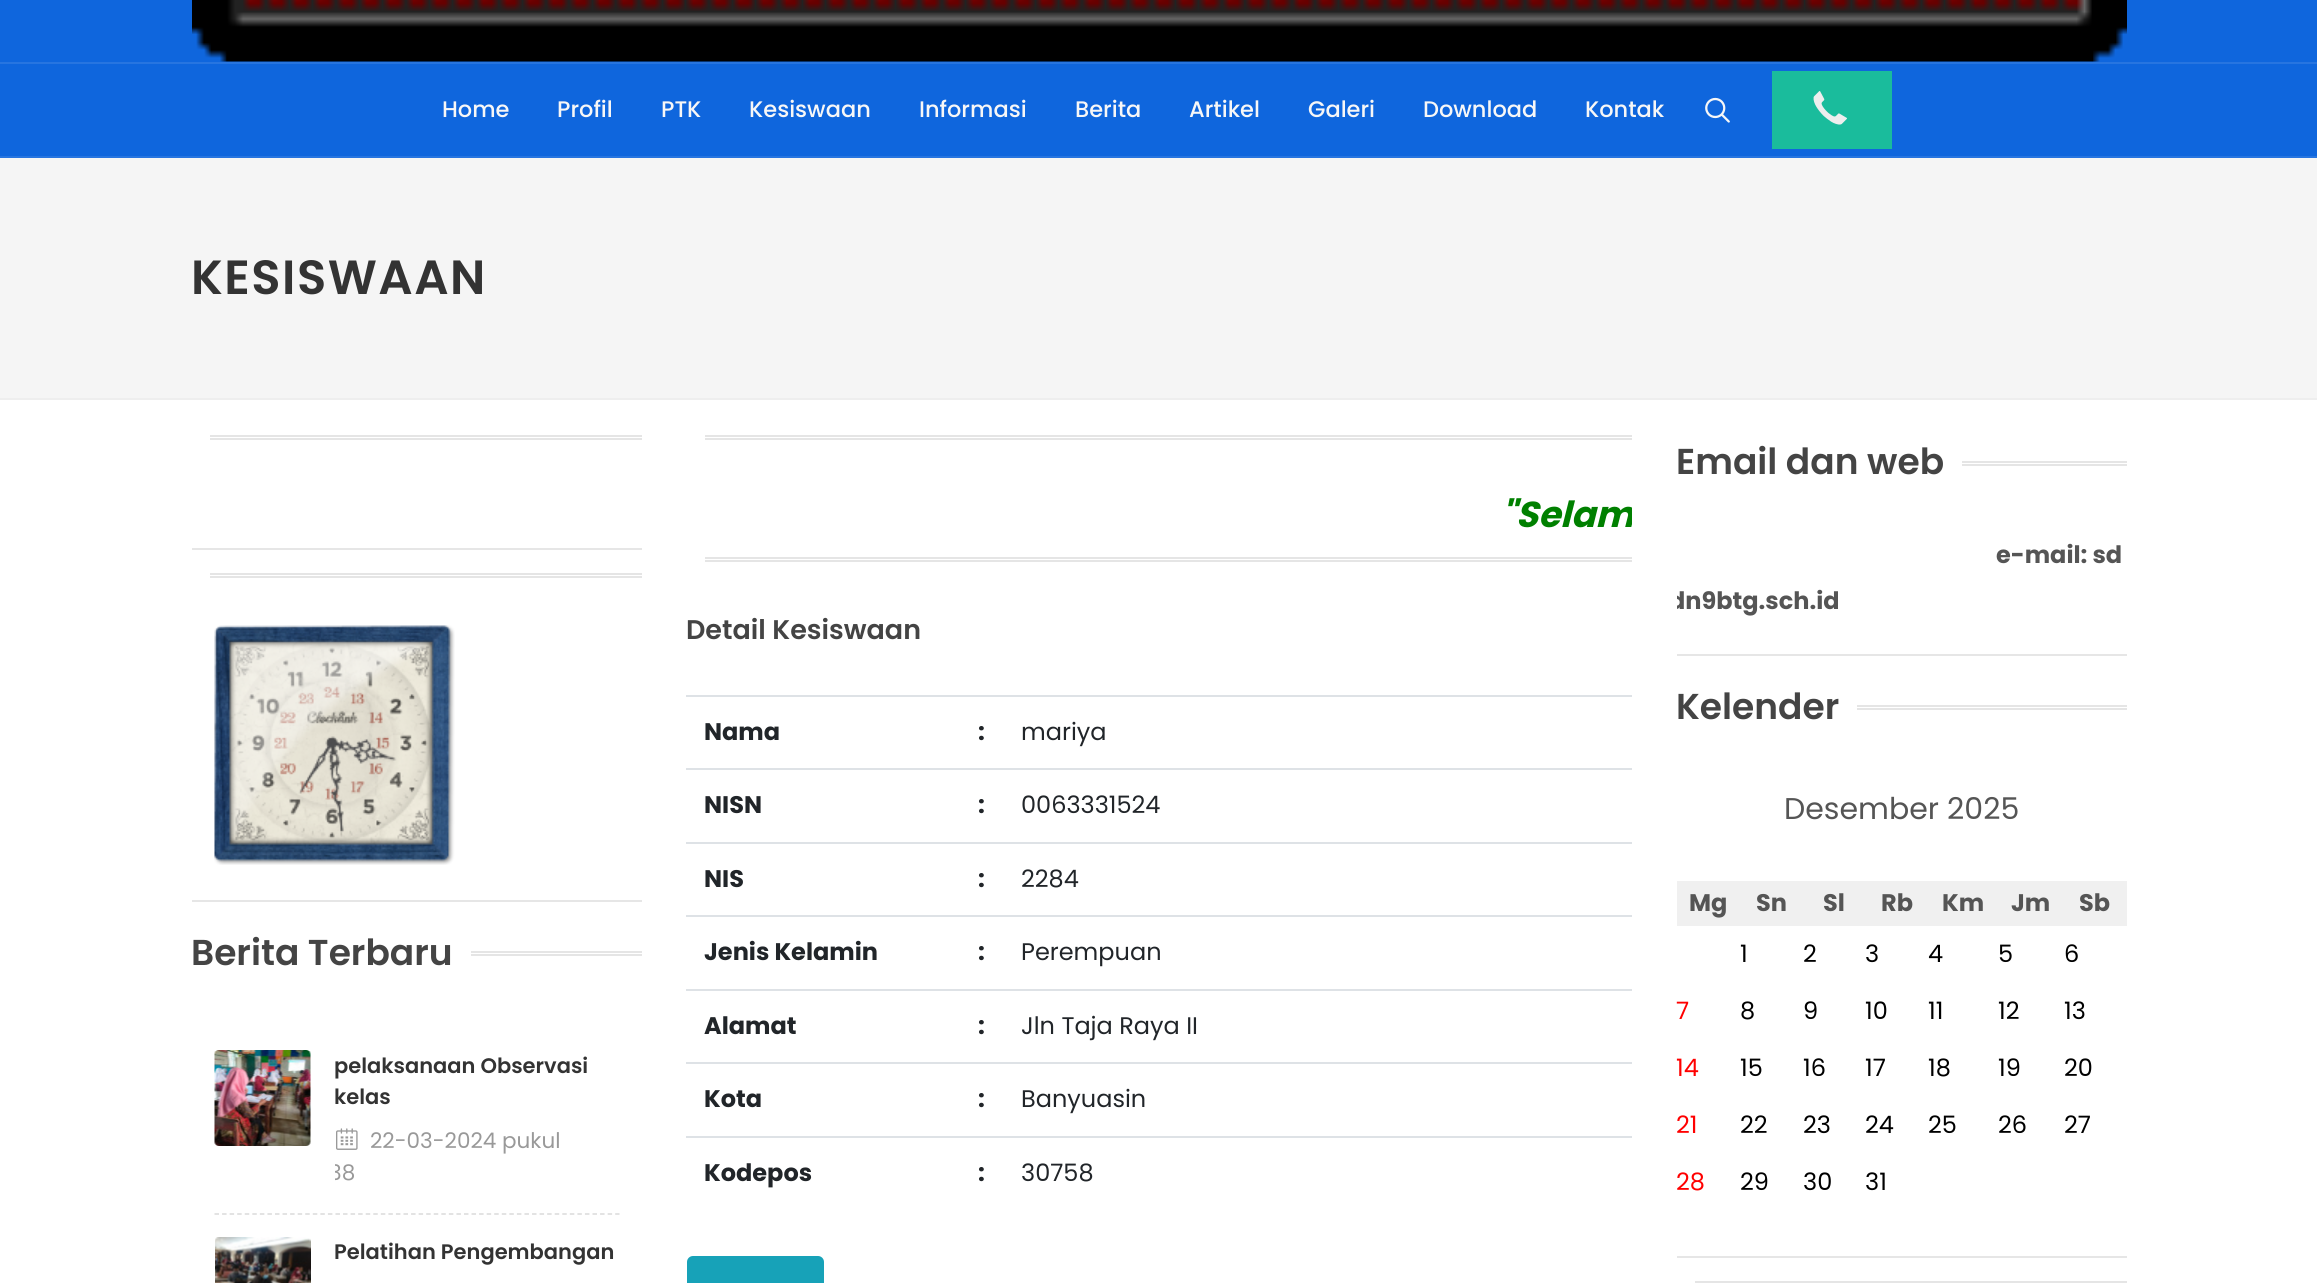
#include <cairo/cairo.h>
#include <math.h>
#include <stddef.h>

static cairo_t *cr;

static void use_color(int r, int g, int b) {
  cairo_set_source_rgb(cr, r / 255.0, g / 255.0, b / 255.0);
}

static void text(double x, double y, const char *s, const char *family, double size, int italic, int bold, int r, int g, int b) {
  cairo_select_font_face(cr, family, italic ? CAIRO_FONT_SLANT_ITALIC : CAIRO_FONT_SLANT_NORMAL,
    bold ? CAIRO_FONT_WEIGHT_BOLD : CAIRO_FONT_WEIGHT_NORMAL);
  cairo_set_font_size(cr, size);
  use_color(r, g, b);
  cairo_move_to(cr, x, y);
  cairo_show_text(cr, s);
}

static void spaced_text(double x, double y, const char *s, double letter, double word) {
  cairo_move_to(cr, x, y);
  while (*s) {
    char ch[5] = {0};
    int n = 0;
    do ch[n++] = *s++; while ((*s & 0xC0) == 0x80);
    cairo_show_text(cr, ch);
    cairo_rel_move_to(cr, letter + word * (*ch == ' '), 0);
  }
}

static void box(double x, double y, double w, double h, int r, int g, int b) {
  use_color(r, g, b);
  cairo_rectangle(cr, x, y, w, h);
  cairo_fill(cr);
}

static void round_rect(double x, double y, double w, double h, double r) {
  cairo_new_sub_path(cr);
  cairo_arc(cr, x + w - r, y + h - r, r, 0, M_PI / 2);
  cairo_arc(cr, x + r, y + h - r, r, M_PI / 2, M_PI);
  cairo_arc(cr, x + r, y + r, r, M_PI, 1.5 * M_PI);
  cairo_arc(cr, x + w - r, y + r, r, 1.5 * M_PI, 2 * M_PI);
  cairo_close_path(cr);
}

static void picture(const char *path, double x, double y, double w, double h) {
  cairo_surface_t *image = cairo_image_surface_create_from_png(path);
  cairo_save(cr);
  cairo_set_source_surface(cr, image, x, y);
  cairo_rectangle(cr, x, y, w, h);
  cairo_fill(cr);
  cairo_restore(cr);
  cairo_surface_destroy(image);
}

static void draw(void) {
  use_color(255, 255, 255);
  cairo_paint(cr);
  box(0, 0, 2317, 156, 15, 102, 221);
  box(0, 156, 2317, 2, 39, 117, 224);
  picture("img_01.png", 192, 0, 1935, 62);
  box(0, 62, 2317, 2, 39, 117, 224);
  picture("img_02.png", 1705, 97, 25, 26);
  box(1772, 71, 120, 78, 26, 188, 156);
  picture("img_03.png", 1813, 91, 34, 34);
  box(0, 158, 2317, 240, 245, 245, 245);
  box(0, 398, 2317, 2, 238, 238, 238);
  box(210, 435, 432, 2, 229, 229, 229);
  box(210, 438, 432, 2, 229, 229, 229);
  box(192, 548, 450, 2, 230, 230, 230);
  box(210, 573, 432, 2, 229, 229, 229);
  box(210, 576, 432, 2, 229, 229, 229);
  picture("img_04.png", 214, 625, 241, 240);
  box(192, 900, 450, 2, 230, 230, 230);
  box(471, 951, 171, 2, 229, 229, 229);
  box(471, 954, 171, 2, 229, 229, 229);
  cairo_new_path(cr);
  cairo_move_to(cr, 214.5, 1214);
  cairo_line_to(cr, 619.5, 1214);
  use_color(218, 218, 218);
  cairo_set_line_width(cr, 1.5);
  cairo_set_dash(cr, (double[]){4.5, 3.06}, 2, 0);
  cairo_stroke(cr);
  picture("img_05.png", 214, 1050, 97, 96);
  picture("img_06.png", 336, 1128, 22, 22);
  picture("img_07.png", 215, 1237, 96, 46);
  box(705, 435, 927, 2, 229, 229, 229);
  box(705, 438, 927, 2, 229, 229, 229);
  box(705, 557, 927, 2, 229, 229, 229);
  box(705, 560, 927, 2, 229, 229, 229);
  box(686, 695, 946, 2, 222, 226, 230);
  box(686, 768, 946, 2, 222, 226, 230);
  box(686, 842, 946, 2, 222, 226, 230);
  box(686, 915, 946, 2, 222, 226, 230);
  box(686, 989, 946, 2, 222, 226, 230);
  box(686, 1062, 946, 2, 222, 226, 230);
  box(686, 1136, 946, 2, 222, 226, 230);
  use_color(23, 162, 184);
  round_rect(688, 1257, 135, 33, 5);
  cairo_fill_preserve(cr);
  cairo_set_line_width(cr, 2);
  cairo_set_dash(cr, NULL, 0, 0);
  cairo_stroke(cr);
  box(1962, 461, 165, 2, 229, 229, 229);
  box(1962, 464, 165, 2, 229, 229, 229);
  box(1677, 654, 450, 2, 230, 230, 230);
  box(1857, 705, 270, 2, 229, 229, 229);
  box(1857, 708, 270, 2, 229, 229, 229);
  box(1677, 881, 450, 45, 240, 240, 240);
  box(1677, 1256, 450, 2, 230, 230, 230);
  box(1695, 1281, 432, 2, 229, 229, 229);
  text(442, 117, "Home", "Poppins Medium", 22.5, 0, 0, 247, 247, 247);
  text(557, 117, "Profil", "Poppins Medium", 22.5, 0, 0, 247, 247, 247);
  text(661, 117, "PTK", "Poppins Medium", 22.5, 0, 0, 247, 247, 247);
  text(749, 117, "Kesiswaan", "Poppins Medium", 22.5, 0, 0, 247, 247, 247);
  text(919, 117, "Informasi", "Poppins Medium", 22.5, 0, 0, 247, 247, 247);
  text(1075, 117, "Berita", "Poppins Medium", 22.5, 0, 0, 247, 247, 247);
  text(1189, 117, "Artikel", "Poppins Medium", 22.5, 0, 0, 247, 247, 247);
  text(1308, 117, "Galeri", "Poppins Medium", 22.5, 0, 0, 247, 247, 247);
  text(1423, 117, "Download", "Poppins Medium", 22.5, 0, 0, 247, 247, 247);
  text(1585, 117, "Kontak", "Poppins Medium", 22.5, 0, 0, 247, 247, 247);
  cairo_select_font_face(cr, "Poppins SemiBold", CAIRO_FONT_SLANT_NORMAL, CAIRO_FONT_WEIGHT_NORMAL);
  cairo_set_font_size(cr, 48);
  use_color(51, 51, 51);
  spaced_text(191, 294, "KESISWAAN", 1.5, 0);
  text(191, 965, "Berita Terbaru", "Poppins SemiBold", 36, 0, 0, 68, 68, 68);
  text(334, 1073, "pelaksanaan Observasi", "Poppins SemiBold", 21, 0, 0, 51, 51, 51);
  text(334, 1104, "kelas", "Poppins SemiBold", 21, 0, 0, 51, 51, 51);
  text(370, 1148, "22-03-2024 pukul", "Poppins", 21.5, 0, 0, 153, 153, 153);
  cairo_save(cr);
  cairo_rectangle(cr, 335, 1122, 285, 69);
  cairo_clip(cr);
  text(329, 1180, "38", "Poppins", 21.5, 0, 0, 153, 153, 153);
  cairo_restore(cr);
  text(334, 1259, "Pelatihan Pengembangan", "Poppins SemiBold", 21, 0, 0, 51, 51, 51);
  cairo_save(cr);
  cairo_rectangle(cr, 687, 488, 945, 54);
  cairo_clip(cr);
  text(1501, 527, "\"Selam", "Poppins", 36, 1, 1, 0, 128, 0);
  cairo_restore(cr);
  text(686, 639, "Detail Kesiswaan", "Poppins SemiBold", 27, 0, 0, 68, 68, 68);
  text(704, 740, "Nama", "Poppins", 24, 0, 1, 33, 37, 41);
  text(978, 740, ":", "Poppins", 24, 0, 1, 33, 37, 41);
  text(1021, 740, "mariya", "Poppins", 24, 0, 0, 33, 37, 41);
  text(704, 813, "NISN", "Poppins", 24, 0, 1, 33, 37, 41);
  text(978, 813, ":", "Poppins", 24, 0, 1, 33, 37, 41);
  text(1021, 813, "0063331524", "Poppins", 24, 0, 0, 33, 37, 41);
  text(704, 887, "NIS", "Poppins", 24, 0, 1, 33, 37, 41);
  text(978, 887, ":", "Poppins", 24, 0, 1, 33, 37, 41);
  text(1021, 887, "2284", "Poppins", 24, 0, 0, 33, 37, 41);
  text(704, 960, "Jenis Kelamin", "Poppins", 24, 0, 1, 33, 37, 41);
  text(978, 960, ":", "Poppins", 24, 0, 1, 33, 37, 41);
  text(1021, 960, "Perempuan", "Poppins", 24, 0, 0, 33, 37, 41);
  text(704, 1034, "Alamat", "Poppins", 24, 0, 1, 33, 37, 41);
  text(978, 1034, ":", "Poppins", 24, 0, 1, 33, 37, 41);
  text(1021, 1034, "Jln Taja Raya II", "Poppins", 24, 0, 0, 33, 37, 41);
  text(704, 1107, "Kota", "Poppins", 24, 0, 1, 33, 37, 41);
  text(978, 1107, ":", "Poppins", 24, 0, 1, 33, 37, 41);
  text(1021, 1107, "Banyuasin", "Poppins", 24, 0, 0, 33, 37, 41);
  text(704, 1181, "Kodepos", "Poppins", 24, 0, 1, 33, 37, 41);
  text(978, 1181, ":", "Poppins", 24, 0, 1, 33, 37, 41);
  text(1021, 1181, "30758", "Poppins", 24, 0, 0, 33, 37, 41);
  text(1676, 474, "Email dan web", "Poppins SemiBold", 36, 0, 0, 68, 68, 68);
  text(1996, 563, "e-mail: sd", "Poppins", 24, 0, 1, 85, 85, 85);
  cairo_save(cr);
  cairo_rectangle(cr, 1677, 584, 450, 36);
  cairo_clip(cr);
  text(1669, 609, "dn9btg.sch.id", "Poppins", 24, 0, 1, 85, 85, 85);
  cairo_restore(cr);
  text(1676, 719, "Kelender", "Poppins SemiBold", 36, 0, 0, 68, 68, 68);
  text(1784, 819, "Desember 2025", "Poppins", 30, 0, 0, 85, 85, 85);
  text(1689, 911, "Mg", "Poppins", 24, 0, 1, 85, 85, 85);
  text(1756, 911, "Sn", "Poppins", 24, 0, 1, 85, 85, 85);
  text(1823, 911, "Sl", "Poppins", 24, 0, 1, 85, 85, 85);
  text(1881, 911, "Rb", "Poppins", 24, 0, 1, 85, 85, 85);
  text(1942, 911, "Km", "Poppins", 24, 0, 1, 85, 85, 85);
  text(2011, 911, "Jm", "Poppins", 24, 0, 1, 85, 85, 85);
  text(2079, 911, "Sb", "Poppins", 24, 0, 1, 85, 85, 85);
  text(1740, 962, "1", "Poppins", 24, 0, 0, 0, 0, 0);
  text(1803, 962, "2", "Poppins", 24, 0, 0, 0, 0, 0);
  text(1865, 962, "3", "Poppins", 24, 0, 0, 0, 0, 0);
  text(1928, 962, "4", "Poppins", 24, 0, 0, 0, 0, 0);
  text(1998, 962, "5", "Poppins", 24, 0, 0, 0, 0, 0);
  text(2064, 962, "6", "Poppins", 24, 0, 0, 0, 0, 0);
  text(1676, 1019, "7", "Poppins", 24, 0, 0, 255, 0, 0);
  text(1740, 1019, "8", "Poppins", 24, 0, 0, 0, 0, 0);
  text(1803, 1019, "9", "Poppins", 24, 0, 0, 0, 0, 0);
  text(1865, 1019, "10", "Poppins", 24, 0, 0, 0, 0, 0);
  text(1928, 1019, "11", "Poppins", 24, 0, 0, 0, 0, 0);
  text(1998, 1019, "12", "Poppins", 24, 0, 0, 0, 0, 0);
  text(2064, 1019, "13", "Poppins", 24, 0, 0, 0, 0, 0);
  text(1676, 1076, "14", "Poppins", 24, 0, 0, 255, 0, 0);
  text(1740, 1076, "15", "Poppins", 24, 0, 0, 0, 0, 0);
  text(1803, 1076, "16", "Poppins", 24, 0, 0, 0, 0, 0);
  text(1865, 1076, "17", "Poppins", 24, 0, 0, 0, 0, 0);
  text(1928, 1076, "18", "Poppins", 24, 0, 0, 0, 0, 0);
  text(1998, 1076, "19", "Poppins", 24, 0, 0, 0, 0, 0);
  text(2064, 1076, "20", "Poppins", 24, 0, 0, 0, 0, 0);
  text(1676, 1133, "21", "Poppins", 24, 0, 0, 255, 0, 0);
  text(1740, 1133, "22", "Poppins", 24, 0, 0, 0, 0, 0);
  text(1803, 1133, "23", "Poppins", 24, 0, 0, 0, 0, 0);
  text(1865, 1133, "24", "Poppins", 24, 0, 0, 0, 0, 0);
  text(1928, 1133, "25", "Poppins", 24, 0, 0, 0, 0, 0);
  text(1998, 1133, "26", "Poppins", 24, 0, 0, 0, 0, 0);
  text(2064, 1133, "27", "Poppins", 24, 0, 0, 0, 0, 0);
  text(1676, 1190, "28", "Poppins", 24, 0, 0, 255, 0, 0);
  text(1740, 1190, "29", "Poppins", 24, 0, 0, 0, 0, 0);
  text(1803, 1190, "30", "Poppins", 24, 0, 0, 0, 0, 0);
  text(1865, 1190, "31", "Poppins", 24, 0, 0, 0, 0, 0);
}

int main(void) {
  cairo_surface_t *surface = cairo_image_surface_create(CAIRO_FORMAT_RGB24, 2317, 1283);
  cr = cairo_create(surface);
  cairo_font_options_t *options = cairo_font_options_create();
  cairo_font_options_set_hint_metrics(options, CAIRO_HINT_METRICS_OFF);
  cairo_font_options_set_hint_style(options, CAIRO_HINT_STYLE_NONE);
  cairo_set_font_options(cr, options);
  cairo_set_miter_limit(cr, 4);
  draw();
  cairo_surface_write_to_png(surface, "out.png");
  cairo_font_options_destroy(options);
  cairo_destroy(cr);
  cairo_surface_destroy(surface);
  return 0;
}
